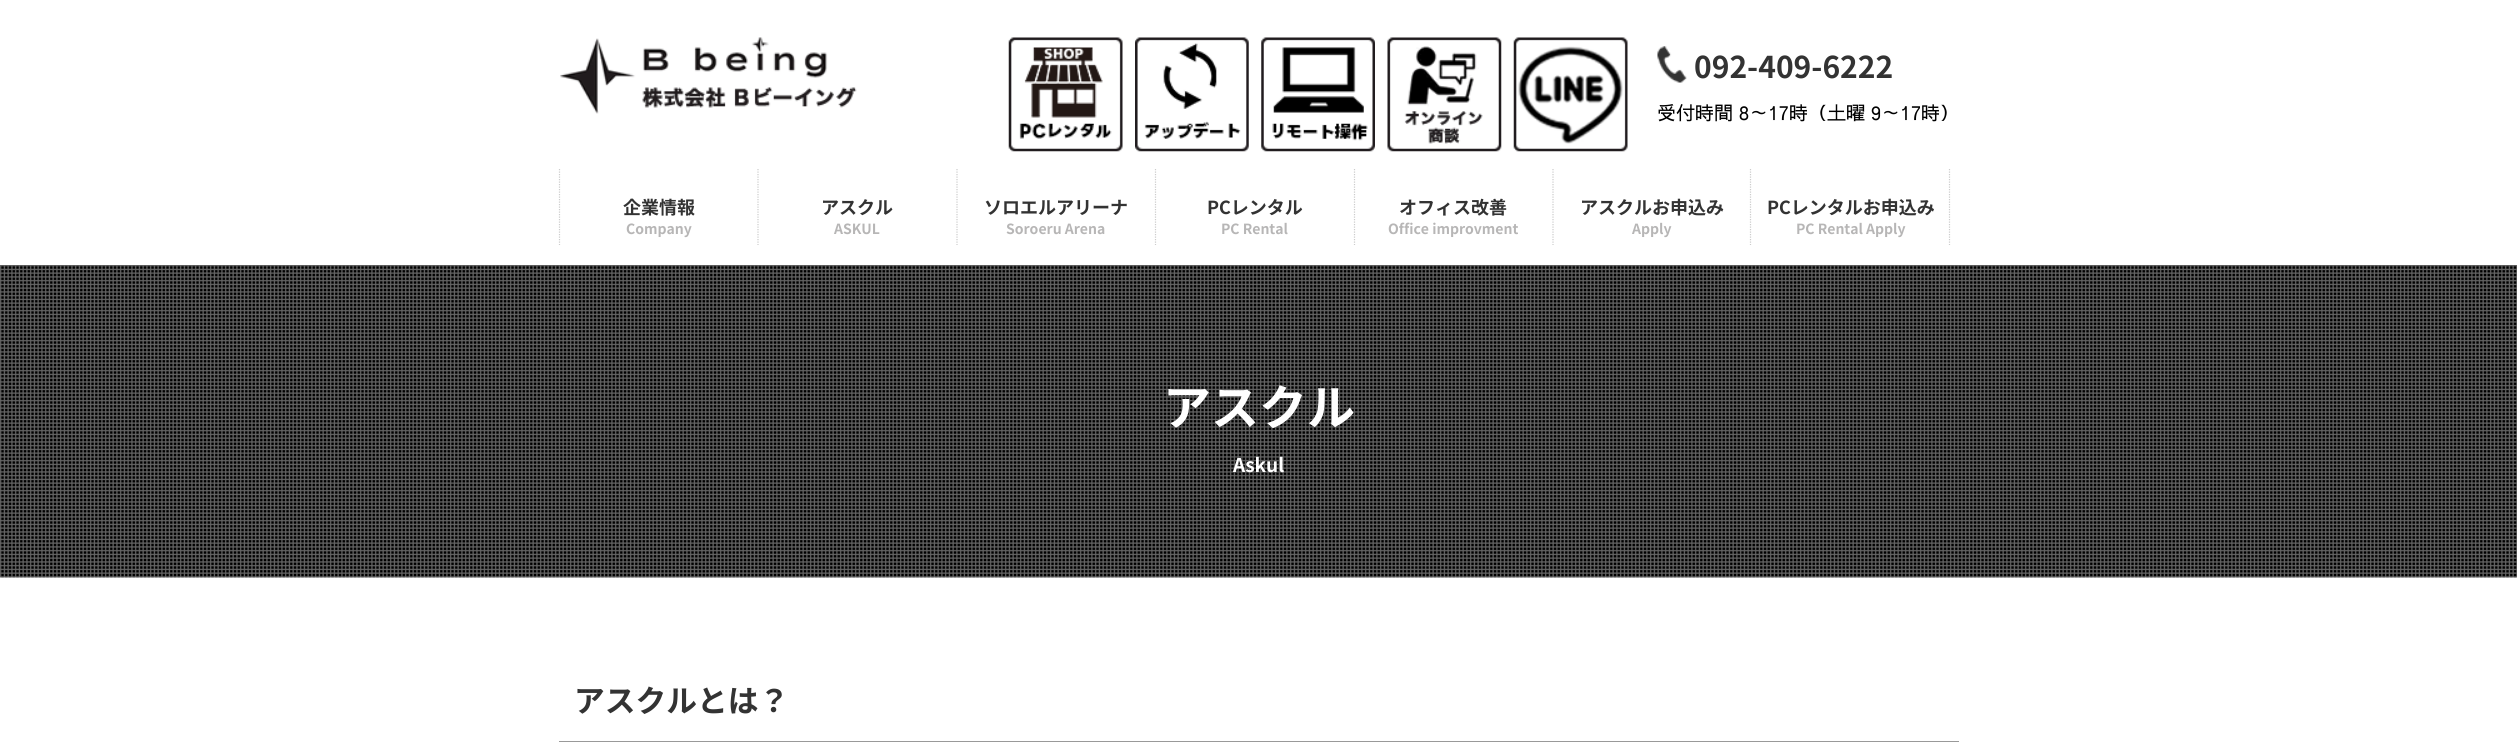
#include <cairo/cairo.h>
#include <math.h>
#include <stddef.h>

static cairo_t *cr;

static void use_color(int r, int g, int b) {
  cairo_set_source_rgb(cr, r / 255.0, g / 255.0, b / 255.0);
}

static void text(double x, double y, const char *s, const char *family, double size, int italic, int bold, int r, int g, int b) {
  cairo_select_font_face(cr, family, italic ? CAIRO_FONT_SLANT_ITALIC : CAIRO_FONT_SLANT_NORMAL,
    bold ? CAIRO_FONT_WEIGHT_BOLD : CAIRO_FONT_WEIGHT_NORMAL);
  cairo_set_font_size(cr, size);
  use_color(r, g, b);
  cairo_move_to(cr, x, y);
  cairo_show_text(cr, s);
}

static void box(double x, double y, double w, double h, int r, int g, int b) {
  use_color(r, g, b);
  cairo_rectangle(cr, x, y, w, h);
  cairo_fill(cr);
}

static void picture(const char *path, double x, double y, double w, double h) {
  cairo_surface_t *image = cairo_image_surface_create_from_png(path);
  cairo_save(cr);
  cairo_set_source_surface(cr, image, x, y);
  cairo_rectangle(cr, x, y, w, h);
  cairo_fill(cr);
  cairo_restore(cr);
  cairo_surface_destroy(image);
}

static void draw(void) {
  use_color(255, 255, 255);
  cairo_paint(cr);
  picture("img_01.png", 560, 37, 297, 77);
  picture("img_02.png", 1008, 37, 115, 115);
  picture("img_03.png", 1135, 37, 114, 115);
  picture("img_04.png", 1261, 37, 114, 115);
  picture("img_05.png", 1387, 37, 115, 115);
  picture("img_06.png", 1513, 37, 115, 115);
  picture("img_07.png", 1657, 46, 30, 37);
  cairo_new_path(cr);
  cairo_move_to(cr, 758, 169);
  cairo_line_to(cr, 758, 245);
  use_color(204, 204, 204);
  cairo_set_line_width(cr, 1.2);
  cairo_set_dash(cr, (double[]){1.25, 1.25}, 2, 0);
  cairo_stroke(cr);
  cairo_new_path(cr);
  cairo_move_to(cr, 559.5, 169);
  cairo_line_to(cr, 559.5, 245);
  cairo_stroke(cr);
  cairo_new_path(cr);
  cairo_move_to(cr, 957, 169);
  cairo_line_to(cr, 957, 245);
  cairo_stroke(cr);
  cairo_new_path(cr);
  cairo_move_to(cr, 1155.5, 169);
  cairo_line_to(cr, 1155.5, 245);
  cairo_stroke(cr);
  cairo_new_path(cr);
  cairo_move_to(cr, 1354.5, 169);
  cairo_line_to(cr, 1354.5, 245);
  cairo_stroke(cr);
  cairo_new_path(cr);
  cairo_move_to(cr, 1553, 169);
  cairo_line_to(cr, 1553, 245);
  cairo_stroke(cr);
  cairo_new_path(cr);
  cairo_move_to(cr, 1750.5, 169);
  cairo_line_to(cr, 1750.5, 245);
  cairo_stroke(cr);
  cairo_new_path(cr);
  cairo_move_to(cr, 1949.5, 169);
  cairo_line_to(cr, 1949.5, 245);
  cairo_stroke(cr);
  picture("img_08.png", 0, 265, 2517, 313);
  box(559, 741, 1400, 1, 153, 153, 153);
  text(1694, 78, "092-409-6222", "Noto Sans JP Thin", 30, 0, 0, 51, 51, 51);
  text(1657, 120, "受付時間 8～17時（土曜 9～17時）", "Sawarabi Gothic", 19, 0, 0, 0, 0, 0);
  text(623, 214, "企業情報", "Noto Sans JP Thin", 18, 0, 0, 51, 51, 51);
  text(626, 234, "Company", "Noto Sans JP Thin", 14, 0, 0, 183, 182, 182);
  text(821, 214, "アスクル", "Noto Sans JP Thin", 18, 0, 0, 51, 51, 51);
  text(834, 234, "ASKUL", "Noto Sans JP Thin", 14, 0, 0, 183, 182, 182);
  text(984, 214, "ソロエルアリーナ", "Noto Sans JP Thin", 18, 0, 0, 51, 51, 51);
  text(1006, 234, "Soroeru Arena", "Noto Sans JP Thin", 14, 0, 0, 183, 182, 182);
  text(1207, 214, "PCレンタル", "Noto Sans JP Thin", 18, 0, 0, 51, 51, 51);
  text(1221, 234, "PC Rental", "Noto Sans JP Thin", 14, 0, 0, 183, 182, 182);
  text(1399, 214, "オフィス改善", "Noto Sans JP Thin", 18, 0, 0, 51, 51, 51);
  text(1388, 234, "Office improvment", "Noto Sans JP Thin", 14, 0, 0, 183, 182, 182);
  text(1580, 214, "アスクルお申込み", "Noto Sans JP Thin", 18, 0, 0, 51, 51, 51);
  text(1632, 234, "Apply", "Noto Sans JP Thin", 14, 0, 0, 183, 182, 182);
  text(1767, 214, "PCレンタルお申込み", "Noto Sans JP Thin", 18, 0, 0, 51, 51, 51);
  text(1796, 234, "PC Rental Apply", "Noto Sans JP Thin", 14, 0, 0, 183, 182, 182);
  text(1163, 425, "アスクル", "Noto Sans JP Thin", 48, 0, 0, 255, 255, 255);
  text(1233, 472, "Askul", "Noto Sans JP Thin", 19, 0, 0, 255, 255, 255);
  text(574, 712, "アスクルとは？", "Noto Sans JP Thin", 30.75, 0, 0, 51, 51, 51);
}

int main(void) {
  cairo_surface_t *surface = cairo_image_surface_create(CAIRO_FORMAT_RGB24, 2517, 752);
  cr = cairo_create(surface);
  cairo_font_options_t *options = cairo_font_options_create();
  cairo_font_options_set_hint_metrics(options, CAIRO_HINT_METRICS_OFF);
  cairo_font_options_set_hint_style(options, CAIRO_HINT_STYLE_NONE);
  cairo_set_font_options(cr, options);
  cairo_set_miter_limit(cr, 4);
  draw();
  cairo_surface_write_to_png(surface, "out.png");
  cairo_font_options_destroy(options);
  cairo_destroy(cr);
  cairo_surface_destroy(surface);
  return 0;
}
